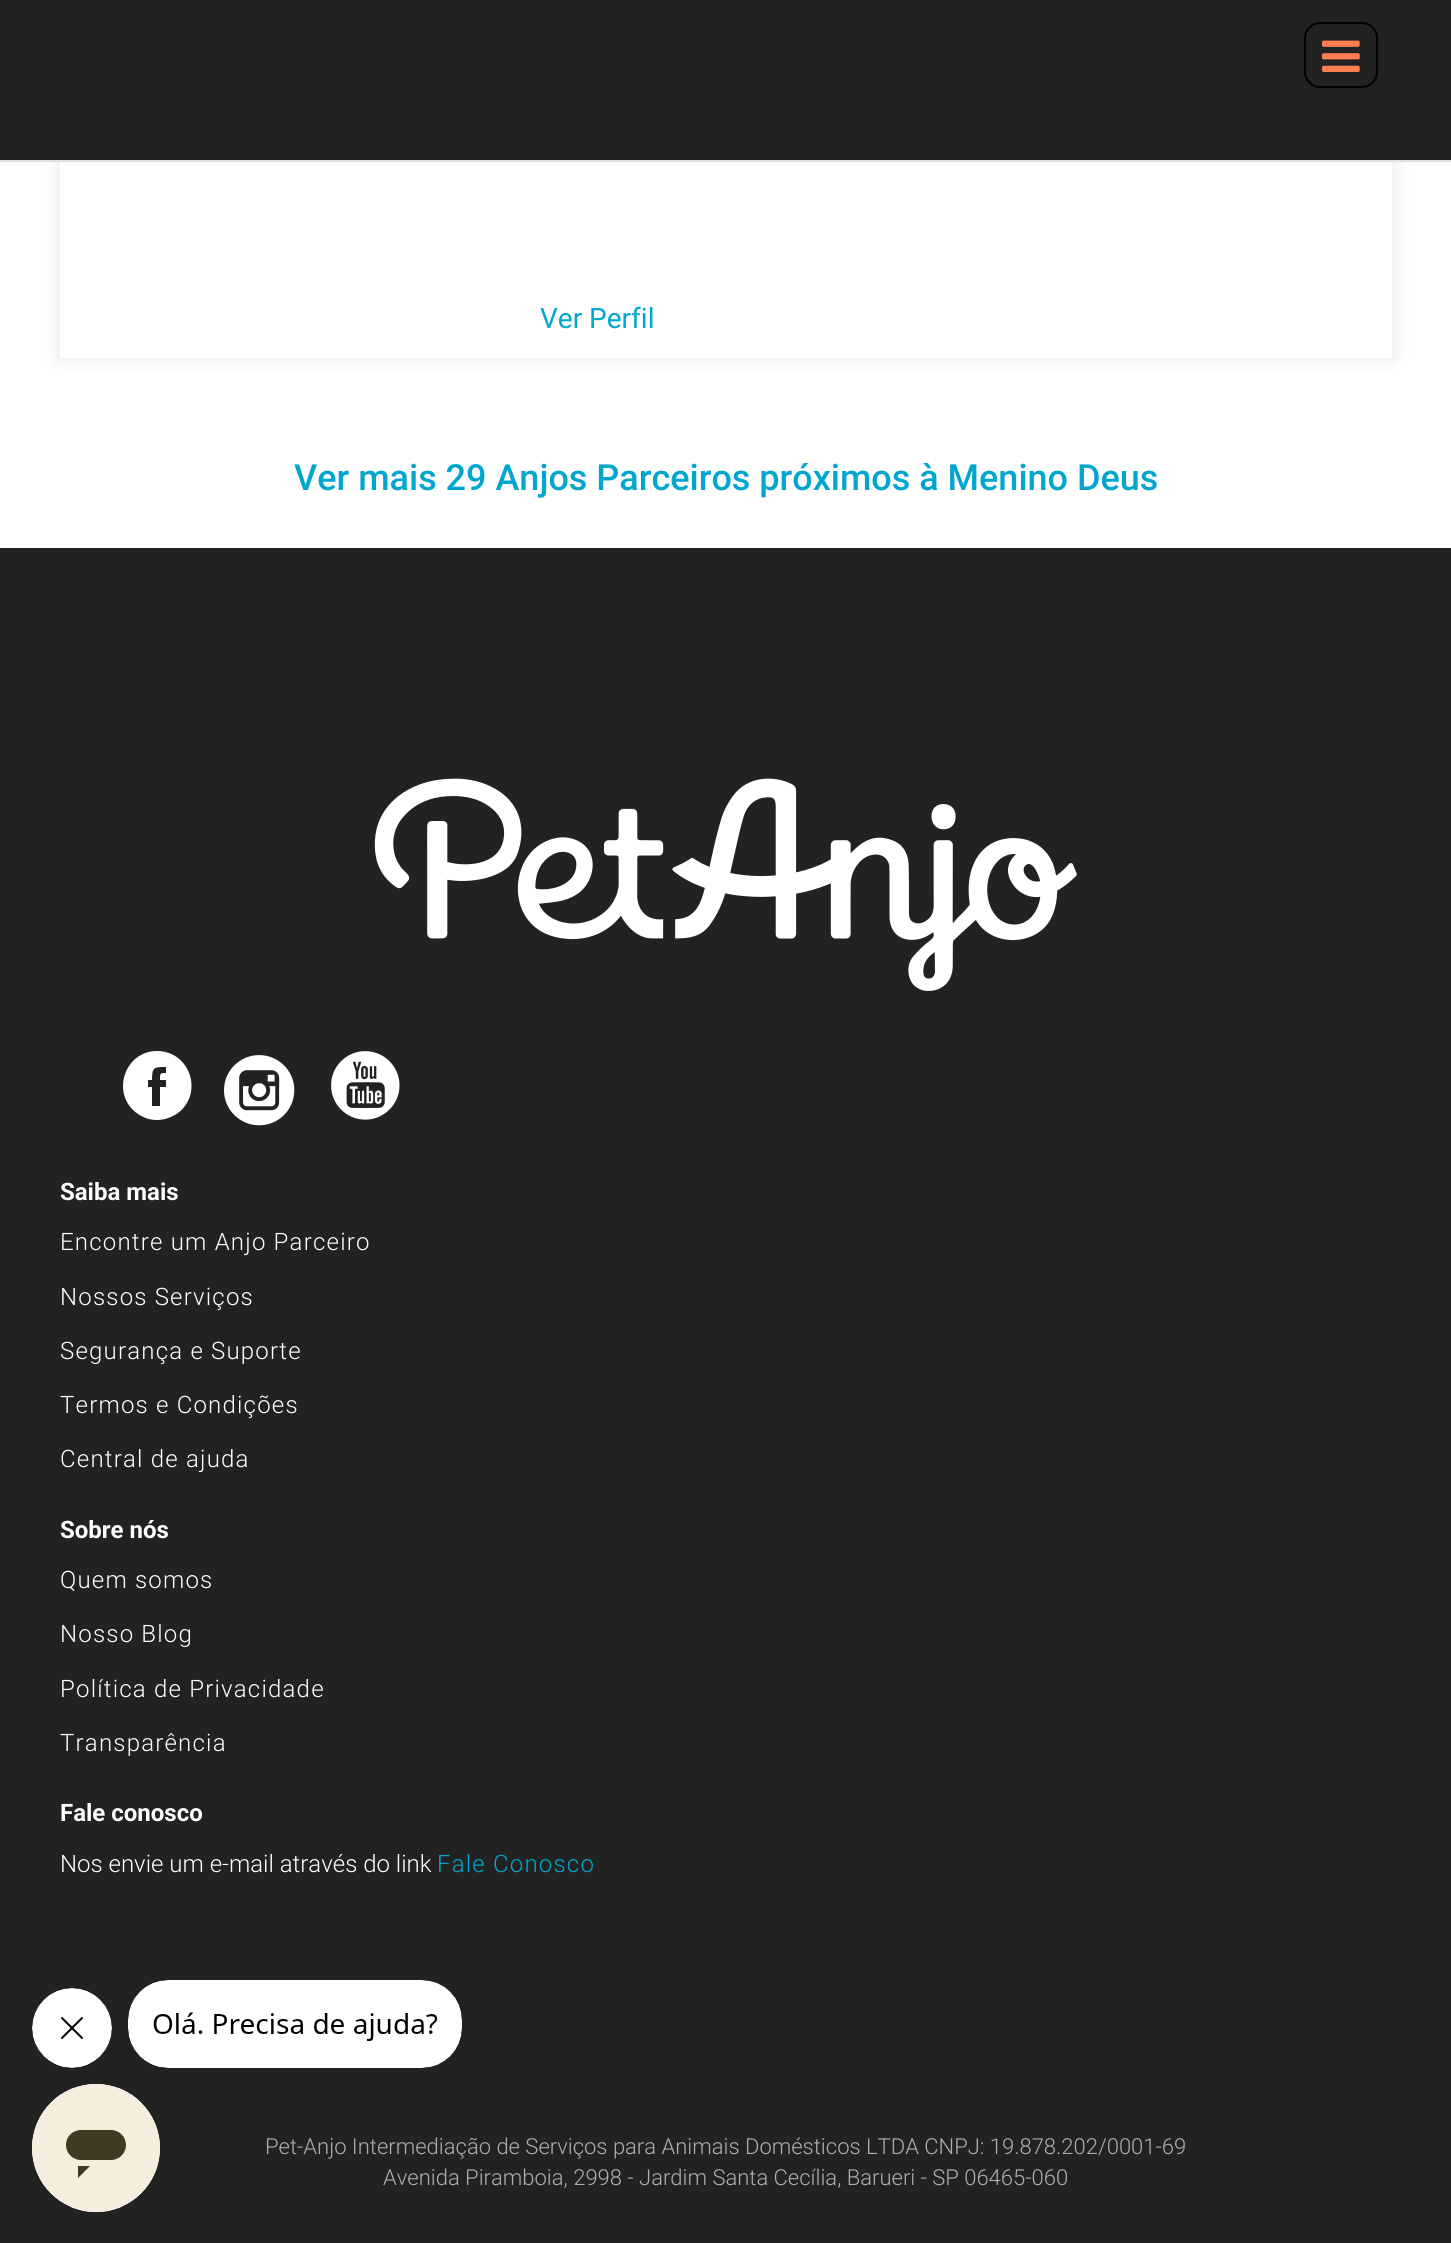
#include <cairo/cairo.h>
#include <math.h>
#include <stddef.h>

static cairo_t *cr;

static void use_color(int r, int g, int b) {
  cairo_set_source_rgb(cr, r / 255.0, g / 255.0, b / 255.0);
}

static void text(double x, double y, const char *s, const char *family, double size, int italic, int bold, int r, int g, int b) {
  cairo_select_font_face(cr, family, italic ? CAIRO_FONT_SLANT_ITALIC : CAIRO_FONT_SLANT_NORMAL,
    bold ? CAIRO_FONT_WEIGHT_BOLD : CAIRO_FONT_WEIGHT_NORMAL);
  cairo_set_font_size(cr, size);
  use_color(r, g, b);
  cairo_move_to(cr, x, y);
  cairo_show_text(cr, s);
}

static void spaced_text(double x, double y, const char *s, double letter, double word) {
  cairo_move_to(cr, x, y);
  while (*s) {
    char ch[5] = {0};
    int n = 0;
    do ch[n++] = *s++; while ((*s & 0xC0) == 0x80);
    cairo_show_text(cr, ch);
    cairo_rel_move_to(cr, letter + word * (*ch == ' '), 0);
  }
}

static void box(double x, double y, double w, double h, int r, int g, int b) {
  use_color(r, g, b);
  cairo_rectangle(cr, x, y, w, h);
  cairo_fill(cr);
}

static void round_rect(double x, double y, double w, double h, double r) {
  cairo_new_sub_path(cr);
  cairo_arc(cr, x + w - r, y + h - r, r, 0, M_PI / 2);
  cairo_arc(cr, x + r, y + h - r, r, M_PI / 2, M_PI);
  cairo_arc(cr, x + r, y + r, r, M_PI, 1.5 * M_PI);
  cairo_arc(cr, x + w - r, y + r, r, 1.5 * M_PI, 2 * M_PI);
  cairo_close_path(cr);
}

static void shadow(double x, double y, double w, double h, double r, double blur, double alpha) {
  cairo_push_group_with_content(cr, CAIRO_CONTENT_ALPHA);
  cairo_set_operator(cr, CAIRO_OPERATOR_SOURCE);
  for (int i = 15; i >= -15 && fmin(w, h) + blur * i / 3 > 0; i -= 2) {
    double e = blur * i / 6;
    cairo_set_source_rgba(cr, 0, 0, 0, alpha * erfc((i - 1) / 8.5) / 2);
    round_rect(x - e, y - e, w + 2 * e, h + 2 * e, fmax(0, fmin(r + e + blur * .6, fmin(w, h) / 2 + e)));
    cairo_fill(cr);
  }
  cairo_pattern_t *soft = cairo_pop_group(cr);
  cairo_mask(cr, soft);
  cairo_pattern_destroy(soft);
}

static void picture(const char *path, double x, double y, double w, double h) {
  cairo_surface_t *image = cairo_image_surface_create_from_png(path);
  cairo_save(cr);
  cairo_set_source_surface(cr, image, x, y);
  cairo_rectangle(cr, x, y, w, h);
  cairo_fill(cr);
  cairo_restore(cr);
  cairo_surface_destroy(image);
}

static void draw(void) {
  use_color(255, 255, 255);
  cairo_paint(cr);
  cairo_save(cr);
  cairo_set_fill_rule(cr, CAIRO_FILL_RULE_EVEN_ODD);
  cairo_new_path(cr);
  cairo_move_to(cr, 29, 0);
  cairo_line_to(cr, 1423, 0);
  cairo_line_to(cr, 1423, 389);
  cairo_line_to(cr, 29, 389);
  cairo_close_path(cr);
  cairo_move_to(cr, 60, -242);
  cairo_line_to(cr, 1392, -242);
  cairo_line_to(cr, 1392, 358);
  cairo_line_to(cr, 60, 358);
  cairo_close_path(cr);
  cairo_clip(cr);
  use_color(0, 0, 0);
  shadow(60, -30, 1332, 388, 0, 10, 0.1);
  cairo_restore(cr);
  box(0, 160, 1451, 2, 224, 224, 224);
  box(0, 0, 1451, 160, 34, 34, 34);
  round_rect(1305, 23, 72, 64, 15);
  use_color(0, 0, 0);
  cairo_stroke(cr);
  picture("img_01.png", 1322, 40, 38, 32);
  box(0, 548, 1451, 1695, 34, 34, 34);
  picture("img_02.png", 374, 778, 703, 213);
  use_color(255, 255, 255);
  cairo_new_path(cr);
  cairo_move_to(cr, 157, 1051);
  cairo_curve_to(cr, 124, 1051, 110, 1095, 138, 1114);
  cairo_curve_to(cr, 144, 1118, 150, 1120, 157, 1120);
  cairo_curve_to(cr, 165, 1120, 172, 1117, 178, 1113);
  cairo_curve_to(cr, 204, 1093, 190, 1051, 157, 1051);
  cairo_close_path(cr);
  cairo_move_to(cr, 166, 1087);
  cairo_line_to(cr, 160, 1087);
  cairo_line_to(cr, 160, 1106);
  cairo_line_to(cr, 152, 1106);
  cairo_line_to(cr, 152, 1087);
  cairo_line_to(cr, 148, 1087);
  cairo_line_to(cr, 148, 1080);
  cairo_line_to(cr, 152, 1080);
  cairo_curve_to(cr, 152, 1067, 154, 1067, 166, 1067);
  cairo_line_to(cr, 166, 1073);
  cairo_curve_to(cr, 160, 1073, 160, 1073, 160, 1080);
  cairo_line_to(cr, 166, 1080);
  cairo_close_path(cr);
  cairo_fill(cr);
  picture("img_03.png", 224, 1055, 71, 71);
  picture("img_04.png", 331, 1051, 69, 69);
  picture("img_05.png", 32, 1988, 80, 80);
  picture("img_06.png", 128, 1980, 334, 88);
  picture("img_07.png", 32, 2084, 128, 128);
  text(540, 328, "Ver Perfil", "Roboto", 28, 0, 0, 0, 166, 206);
  text(294, 490, "Ver mais 29 Anjos Parceiros próximos à Menino Deus", "Roboto Medium", 36, 0, 0, 0, 166, 206);
  text(60, 1200, "Saiba mais", "Roboto", 24, 0, 1, 255, 255, 255);
  cairo_select_font_face(cr, "Roboto Light", CAIRO_FONT_SLANT_NORMAL, CAIRO_FONT_WEIGHT_NORMAL);
  spaced_text(60, 1250, "Encontre um Anjo Parceiro", 1.2, 0);
  spaced_text(60, 1305, "Nossos Serviços", 1.2, 0);
  spaced_text(60, 1359, "Segurança e Suporte", 1.2, 0);
  spaced_text(60, 1413, "Termos e Condições", 1.2, 0);
  spaced_text(60, 1467, "Central de ajuda", 1.2, 0);
  text(60, 1538, "Sobre nós", "Roboto", 24, 0, 1, 255, 255, 255);
  cairo_select_font_face(cr, "Roboto Light", CAIRO_FONT_SLANT_NORMAL, CAIRO_FONT_WEIGHT_NORMAL);
  spaced_text(60, 1588, "Quem somos", 1.2, 0);
  spaced_text(60, 1642, "Nosso Blog", 1.2, 0);
  spaced_text(60, 1697, "Política de Privacidade", 1.2, 0);
  spaced_text(60, 1751, "Transparência", 1.2, 0);
  text(60, 1821, "Fale conosco", "Roboto", 24, 0, 1, 255, 255, 255);
  text(60, 1872, "Nos envie um e-mail através do link", "Roboto Light", 24, 0, 0, 255, 255, 255);
  use_color(0, 166, 206);
  spaced_text(437, 1872, "Fale Conosco", 1.2, 0);
  text(265, 2154, "Pet-Anjo Intermediação de Serviços para Animais Domésticos LTDA CNPJ: 19.878.202/0001-69", "Roboto Light", 22, 0, 0, 175, 175, 175);
  text(383, 2185, "Avenida Piramboia, 2998 - Jardim Santa Cecília, Barueri - SP 06465-060", "Roboto Light", 22, 0, 0, 175, 175, 175);
}

int main(void) {
  cairo_surface_t *surface = cairo_image_surface_create(CAIRO_FORMAT_RGB24, 1451, 2243);
  cr = cairo_create(surface);
  cairo_font_options_t *options = cairo_font_options_create();
  cairo_font_options_set_hint_metrics(options, CAIRO_HINT_METRICS_OFF);
  cairo_font_options_set_hint_style(options, CAIRO_HINT_STYLE_NONE);
  cairo_set_font_options(cr, options);
  cairo_set_miter_limit(cr, 4);
  draw();
  cairo_surface_write_to_png(surface, "out.png");
  cairo_font_options_destroy(options);
  cairo_destroy(cr);
  cairo_surface_destroy(surface);
  return 0;
}
